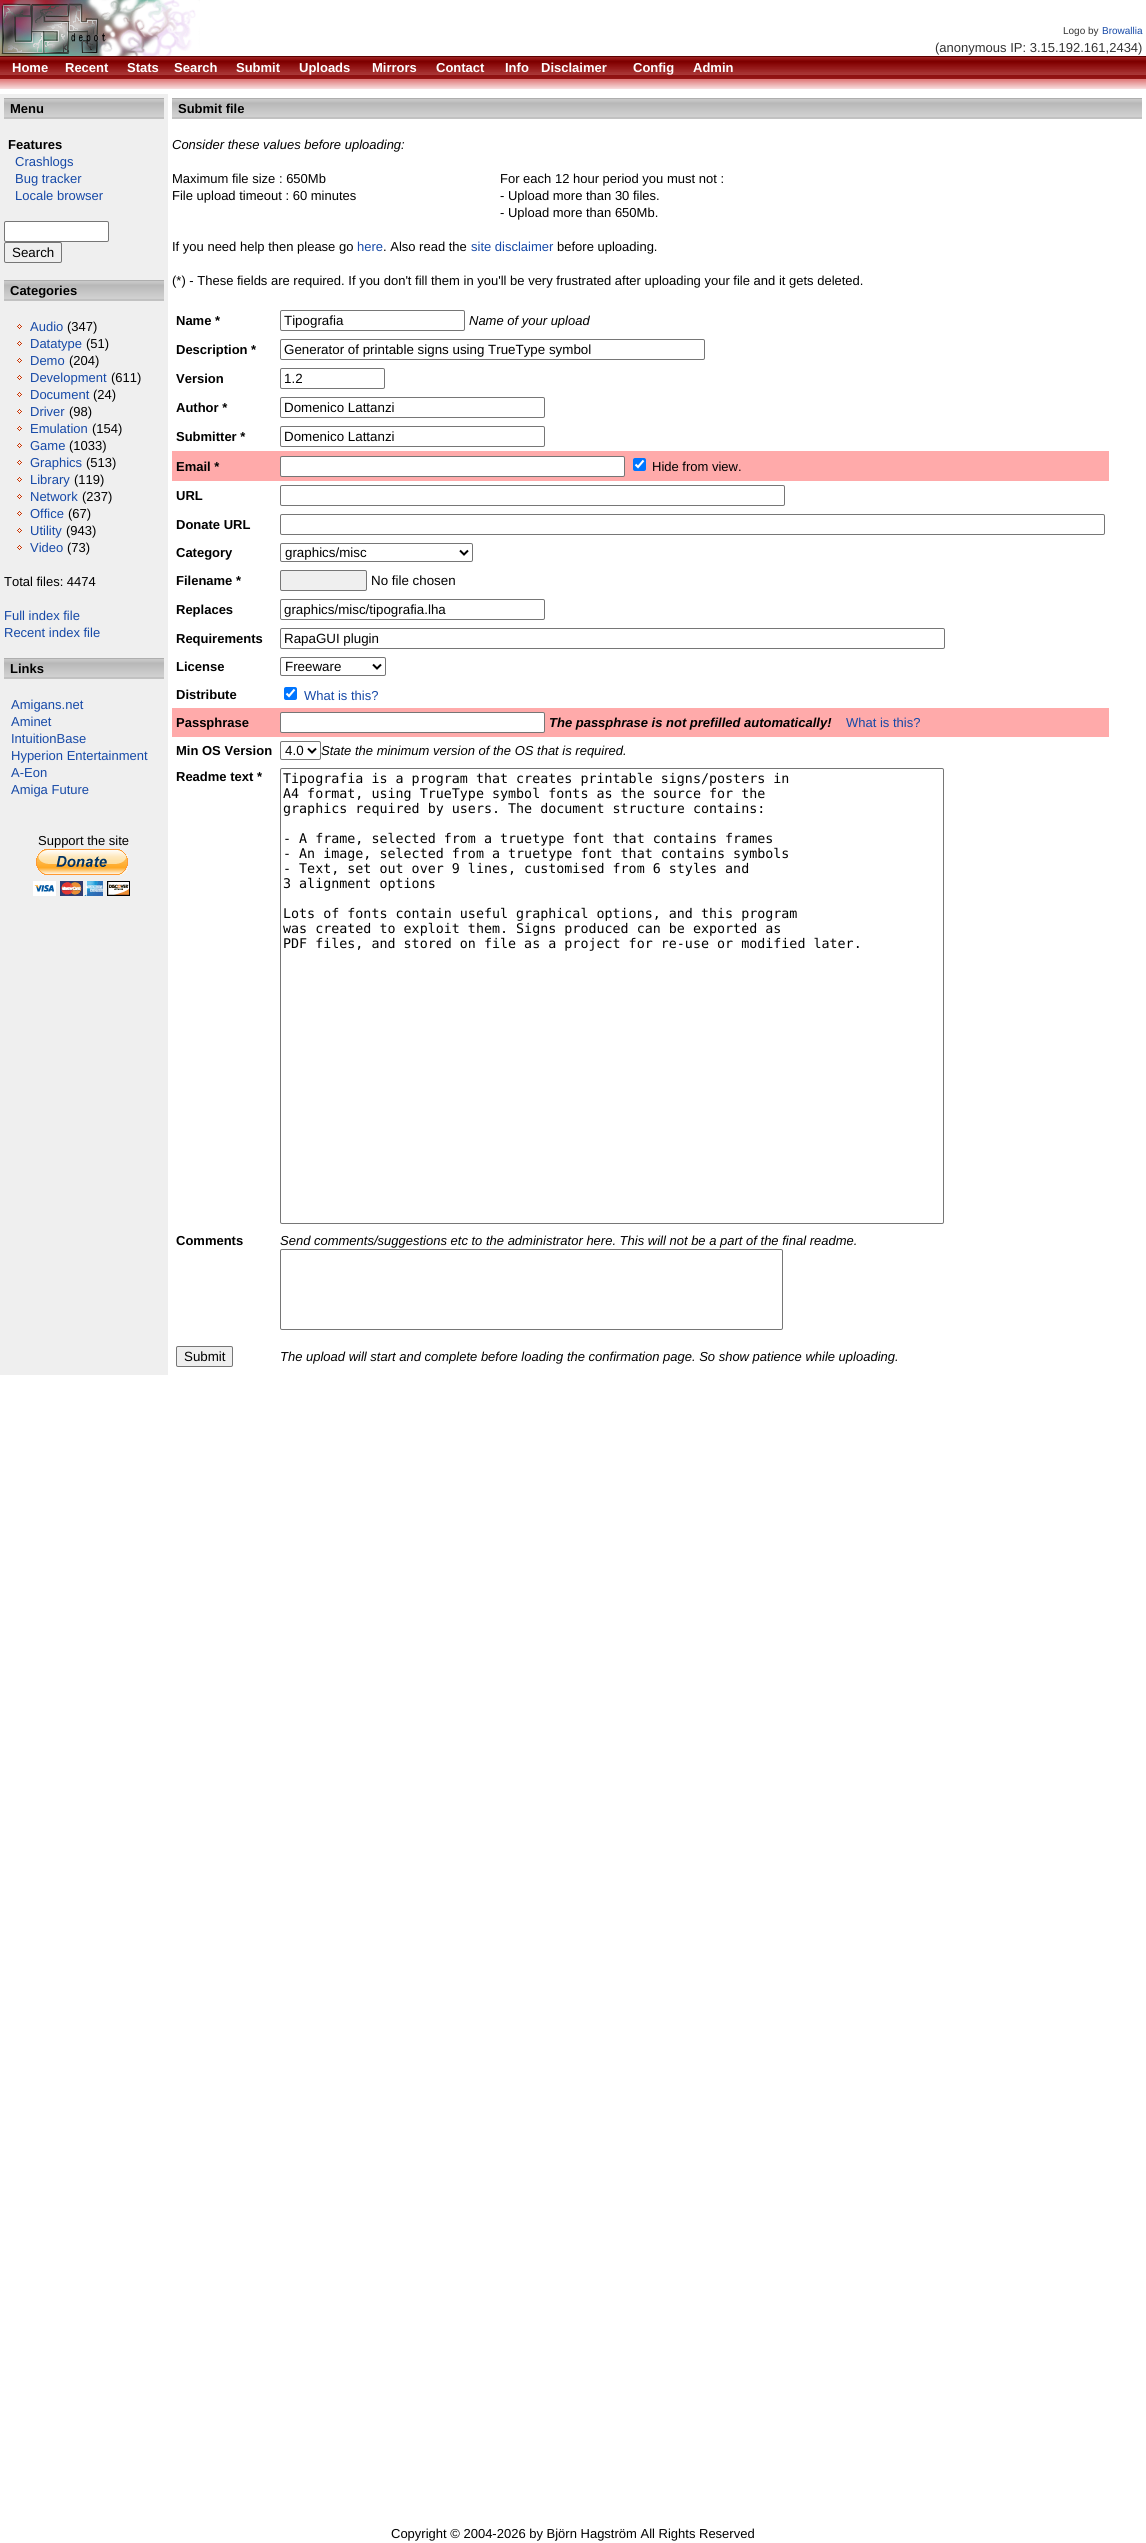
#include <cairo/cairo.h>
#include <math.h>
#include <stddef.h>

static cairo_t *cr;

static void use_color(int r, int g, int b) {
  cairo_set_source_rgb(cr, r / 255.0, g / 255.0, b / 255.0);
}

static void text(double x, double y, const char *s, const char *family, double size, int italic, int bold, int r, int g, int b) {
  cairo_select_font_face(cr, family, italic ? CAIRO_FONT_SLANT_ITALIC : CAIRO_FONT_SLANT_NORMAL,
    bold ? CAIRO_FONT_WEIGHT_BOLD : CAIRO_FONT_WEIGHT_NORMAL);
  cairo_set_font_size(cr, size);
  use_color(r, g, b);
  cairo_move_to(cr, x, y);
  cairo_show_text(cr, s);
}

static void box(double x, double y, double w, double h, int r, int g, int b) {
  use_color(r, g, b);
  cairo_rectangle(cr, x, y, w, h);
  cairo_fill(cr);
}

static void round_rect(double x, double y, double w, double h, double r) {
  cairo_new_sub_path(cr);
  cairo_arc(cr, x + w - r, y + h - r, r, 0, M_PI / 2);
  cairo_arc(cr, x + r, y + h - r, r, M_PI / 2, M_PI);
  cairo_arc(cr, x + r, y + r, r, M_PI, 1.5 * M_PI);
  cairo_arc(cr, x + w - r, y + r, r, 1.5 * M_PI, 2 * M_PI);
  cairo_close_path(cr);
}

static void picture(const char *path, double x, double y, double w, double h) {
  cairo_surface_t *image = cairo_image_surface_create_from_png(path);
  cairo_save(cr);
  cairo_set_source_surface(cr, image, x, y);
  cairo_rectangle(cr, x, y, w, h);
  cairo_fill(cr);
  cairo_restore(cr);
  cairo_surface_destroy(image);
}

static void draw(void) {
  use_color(255, 255, 255);
  cairo_paint(cr);
  picture("img_01.png", 0, 0, 200, 56);
  picture("img_02.png", 0, 56, 1146, 23);
  box(0, 79, 1146, 1, 225, 128, 128);
  picture("img_03.png", 0, 80, 1146, 9);
  box(0, 94, 168, 1281, 239, 239, 239);
  picture("img_04.png", 4, 98, 160, 21);
  use_color(255, 255, 255);
  round_rect(4.5, 221.5, 104, 20, 1.5);
  cairo_fill_preserve(cr);
  use_color(118, 118, 118);
  cairo_set_line_width(cr, 1);
  cairo_stroke(cr);
  round_rect(4.5, 242.5, 57, 20, 1.5);
  cairo_stroke(cr);
  picture("img_04.png", 4, 280, 160, 21);
  picture("img_05.png", 17, 324, 5, 5);
  picture("img_05.png", 17, 341, 5, 5);
  picture("img_05.png", 17, 358, 5, 5);
  picture("img_05.png", 17, 375, 5, 5);
  picture("img_05.png", 17, 392, 5, 5);
  picture("img_05.png", 17, 409, 5, 5);
  picture("img_05.png", 17, 426, 5, 5);
  picture("img_05.png", 17, 443, 5, 5);
  picture("img_05.png", 17, 460, 5, 5);
  picture("img_05.png", 17, 477, 5, 5);
  picture("img_05.png", 17, 494, 5, 5);
  picture("img_05.png", 17, 511, 5, 5);
  picture("img_05.png", 17, 528, 5, 5);
  picture("img_05.png", 17, 545, 5, 5);
  picture("img_04.png", 4, 658, 160, 21);
  picture("img_06.png", 33, 849, 97, 47);
  picture("img_07.png", 172, 98, 970, 21);
  round_rect(280.5, 310.5, 184, 20, 1.5);
  cairo_stroke(cr);
  round_rect(280.5, 339.5, 424, 20, 1.5);
  cairo_stroke(cr);
  round_rect(280.5, 368.5, 104, 20, 1.5);
  cairo_stroke(cr);
  round_rect(280.5, 397.5, 264, 20, 1.5);
  cairo_stroke(cr);
  round_rect(280.5, 426.5, 264, 20, 1.5);
  cairo_stroke(cr);
  box(172, 451, 937, 30, 255, 170, 170);
  use_color(255, 255, 255);
  round_rect(280.5, 456.5, 344, 20, 1.5);
  cairo_fill_preserve(cr);
  use_color(118, 118, 118);
  cairo_stroke(cr);
  use_color(0, 117, 255);
  round_rect(633, 458, 13, 13, 2);
  cairo_fill(cr);
  cairo_new_path(cr);
  cairo_move_to(cr, 635.5, 464.5);
  cairo_line_to(cr, 638, 467);
  cairo_line_to(cr, 643.5, 460.5);
  use_color(255, 255, 255);
  cairo_set_line_width(cr, 2.1);
  cairo_stroke(cr);
  round_rect(280.5, 485.5, 504, 20, 1.5);
  use_color(118, 118, 118);
  cairo_set_line_width(cr, 1);
  cairo_stroke(cr);
  round_rect(280.5, 514.5, 824, 20, 1.5);
  cairo_stroke(cr);
  round_rect(280.5, 543.5, 192, 18, 1.5);
  cairo_stroke(cr);
  cairo_new_path(cr);
  cairo_move_to(cr, 460, 550.5);
  cairo_line_to(cr, 464, 554.5);
  cairo_line_to(cr, 468, 550.5);
  use_color(0, 0, 0);
  cairo_set_line_width(cr, 2);
  cairo_stroke(cr);
  use_color(239, 239, 239);
  round_rect(280.5, 570.5, 86, 20, 1.5);
  cairo_fill_preserve(cr);
  use_color(118, 118, 118);
  cairo_set_line_width(cr, 1);
  cairo_stroke(cr);
  round_rect(280.5, 599.5, 264, 20, 1.5);
  cairo_stroke(cr);
  round_rect(280.5, 628.5, 664, 20, 1.5);
  cairo_stroke(cr);
  round_rect(280.5, 657.5, 105, 18, 1.5);
  cairo_stroke(cr);
  cairo_new_path(cr);
  cairo_move_to(cr, 373, 664.5);
  cairo_line_to(cr, 377, 668.5);
  cairo_line_to(cr, 381, 664.5);
  use_color(0, 0, 0);
  cairo_set_line_width(cr, 2);
  cairo_stroke(cr);
  use_color(0, 117, 255);
  round_rect(284, 687, 13, 13, 2);
  cairo_fill(cr);
  cairo_new_path(cr);
  cairo_move_to(cr, 286.5, 693.5);
  cairo_line_to(cr, 289, 696);
  cairo_line_to(cr, 294.5, 689.5);
  use_color(255, 255, 255);
  cairo_set_line_width(cr, 2.1);
  cairo_stroke(cr);
  box(172, 708, 937, 29, 255, 170, 170);
  use_color(255, 255, 255);
  round_rect(280.5, 712.5, 264, 20, 1.5);
  cairo_fill_preserve(cr);
  use_color(118, 118, 118);
  cairo_set_line_width(cr, 1);
  cairo_stroke(cr);
  round_rect(280.5, 741.5, 40, 18, 1.5);
  cairo_stroke(cr);
  cairo_new_path(cr);
  cairo_move_to(cr, 308, 748.5);
  cairo_line_to(cr, 312, 752.5);
  cairo_line_to(cr, 316, 748.5);
  use_color(0, 0, 0);
  cairo_set_line_width(cr, 2);
  cairo_stroke(cr);
  round_rect(280.5, 768.5, 663, 455, 1.5);
  use_color(118, 118, 118);
  cairo_set_line_width(cr, 1);
  cairo_stroke(cr);
  round_rect(280.5, 1249.5, 502, 80, 1.5);
  cairo_stroke(cr);
  use_color(239, 239, 239);
  round_rect(176.5, 1346.5, 56, 20, 1.5);
  cairo_fill_preserve(cr);
  use_color(118, 118, 118);
  cairo_stroke(cr);
  text(1063, 34, "Logo by", "Liberation Sans", 10, 0, 0, 51, 51, 51);
  text(1102, 34, "Browallia", "Liberation Sans", 10, 0, 0, 22, 73, 167);
  text(935, 52, "(anonymous IP: 3.15.192.161,2434)", "Liberation Sans", 13, 0, 0, 51, 51, 51);
  text(12, 72, "Home", "Liberation Sans", 13, 0, 1, 255, 255, 255);
  text(65, 72, "Recent", "Liberation Sans", 13, 0, 1, 255, 255, 255);
  text(127, 72, "Stats", "Liberation Sans", 13, 0, 1, 255, 255, 255);
  text(174, 72, "Search", "Liberation Sans", 13, 0, 1, 255, 255, 255);
  text(236, 72, "Submit", "Liberation Sans", 13, 0, 1, 255, 255, 255);
  text(299, 72, "Uploads", "Liberation Sans", 13, 0, 1, 255, 255, 255);
  text(372, 72, "Mirrors", "Liberation Sans", 13, 0, 1, 255, 255, 255);
  text(436, 72, "Contact", "Liberation Sans", 13, 0, 1, 255, 255, 255);
  text(505, 72, "Info", "Liberation Sans", 13, 0, 1, 255, 255, 255);
  text(541, 72, "Disclaimer", "Liberation Sans", 13, 0, 1, 255, 255, 255);
  text(633, 72, "Config", "Liberation Sans", 13, 0, 1, 255, 255, 255);
  text(693, 72, "Admin", "Liberation Sans", 13, 0, 1, 255, 255, 255);
  text(10, 113, "Menu", "Liberation Sans", 13, 0, 1, 0, 0, 0);
  text(8, 149, "Features", "Liberation Sans", 13, 0, 1, 0, 0, 0);
  text(15, 166, "Crashlogs", "Liberation Sans", 13, 0, 0, 22, 73, 167);
  text(15, 183, "Bug tracker", "Liberation Sans", 13, 0, 0, 22, 73, 167);
  text(15, 200, "Locale browser", "Liberation Sans", 13, 0, 0, 22, 73, 167);
  text(12, 257, "Search", "Liberation Sans", 13.35, 0, 0, 0, 0, 0);
  text(10, 295, "Categories", "Liberation Sans", 13, 0, 1, 0, 0, 0);
  text(30, 331, "Audio", "Liberation Sans", 13, 0, 0, 22, 73, 167);
  text(67, 331, "(347)", "Liberation Sans", 13, 0, 0, 0, 0, 0);
  text(30, 348, "Datatype", "Liberation Sans", 13, 0, 0, 22, 73, 167);
  text(86, 348, "(51)", "Liberation Sans", 13, 0, 0, 0, 0, 0);
  text(30, 365, "Demo", "Liberation Sans", 13, 0, 0, 22, 73, 167);
  text(69, 365, "(204)", "Liberation Sans", 13, 0, 0, 0, 0, 0);
  text(30, 382, "Development", "Liberation Sans", 13, 0, 0, 22, 73, 167);
  text(111, 382, "(611)", "Liberation Sans", 13, 0, 0, 0, 0, 0);
  text(30, 399, "Document", "Liberation Sans", 13, 0, 0, 22, 73, 167);
  text(93, 399, "(24)", "Liberation Sans", 13, 0, 0, 0, 0, 0);
  text(30, 416, "Driver", "Liberation Sans", 13, 0, 0, 22, 73, 167);
  text(69, 416, "(98)", "Liberation Sans", 13, 0, 0, 0, 0, 0);
  text(30, 433, "Emulation", "Liberation Sans", 13, 0, 0, 22, 73, 167);
  text(92, 433, "(154)", "Liberation Sans", 13, 0, 0, 0, 0, 0);
  text(30, 450, "Game", "Liberation Sans", 13, 0, 0, 22, 73, 167);
  text(69, 450, "(1033)", "Liberation Sans", 13, 0, 0, 0, 0, 0);
  text(30, 467, "Graphics", "Liberation Sans", 13, 0, 0, 22, 73, 167);
  text(86, 467, "(513)", "Liberation Sans", 13, 0, 0, 0, 0, 0);
  text(30, 484, "Library", "Liberation Sans", 13, 0, 0, 22, 73, 167);
  text(74, 484, "(119)", "Liberation Sans", 13, 0, 0, 0, 0, 0);
  text(30, 501, "Network", "Liberation Sans", 13, 0, 0, 22, 73, 167);
  text(82, 501, "(237)", "Liberation Sans", 13, 0, 0, 0, 0, 0);
  text(30, 518, "Office", "Liberation Sans", 13, 0, 0, 22, 73, 167);
  text(68, 518, "(67)", "Liberation Sans", 13, 0, 0, 0, 0, 0);
  text(30, 535, "Utility", "Liberation Sans", 13, 0, 0, 22, 73, 167);
  text(66, 535, "(943)", "Liberation Sans", 13, 0, 0, 0, 0, 0);
  text(30, 552, "Video", "Liberation Sans", 13, 0, 0, 22, 73, 167);
  text(67, 552, "(73)", "Liberation Sans", 13, 0, 0, 0, 0, 0);
  text(4, 586, "Total files: 4474", "Liberation Sans", 13, 0, 0, 0, 0, 0);
  text(4, 620, "Full index file", "Liberation Sans", 13, 0, 0, 22, 73, 167);
  text(4, 637, "Recent index file", "Liberation Sans", 13, 0, 0, 22, 73, 167);
  text(10, 673, "Links", "Liberation Sans", 13, 0, 1, 0, 0, 0);
  text(11, 709, "Amigans.net", "Liberation Sans", 13, 0, 0, 22, 73, 167);
  text(11, 726, "Aminet", "Liberation Sans", 13, 0, 0, 22, 73, 167);
  text(11, 743, "IntuitionBase", "Liberation Sans", 13, 0, 0, 22, 73, 167);
  text(11, 760, "Hyperion Entertainment", "Liberation Sans", 13, 0, 0, 22, 73, 167);
  text(11, 777, "A-Eon", "Liberation Sans", 13, 0, 0, 22, 73, 167);
  text(11, 794, "Amiga Future", "Liberation Sans", 13, 0, 0, 22, 73, 167);
  text(38, 845, "Support the site", "Liberation Sans", 13, 0, 0, 0, 0, 0);
  text(178, 113, "Submit file", "Liberation Sans", 13, 0, 1, 0, 0, 0);
  text(172, 149, "Consider these values before uploading:", "Liberation Sans", 13, 1, 0, 0, 0, 0);
  text(172, 183, "Maximum file size : 650Mb", "Liberation Sans", 13, 0, 0, 0, 0, 0);
  text(172, 200, "File upload timeout : 60 minutes", "Liberation Sans", 13, 0, 0, 0, 0, 0);
  text(500, 183, "For each 12 hour period you must not :", "Liberation Sans", 13, 0, 0, 0, 0, 0);
  text(500, 200, "- Upload more than 30 files.", "Liberation Sans", 13, 0, 0, 0, 0, 0);
  text(500, 217, "- Upload more than 650Mb.", "Liberation Sans", 13, 0, 0, 0, 0, 0);
  text(172, 251, "If you need help then please go", "Liberation Sans", 13, 0, 0, 0, 0, 0);
  text(357, 251, "here", "Liberation Sans", 13, 0, 0, 22, 73, 167);
  text(383, 251, ". Also read the", "Liberation Sans", 13, 0, 0, 0, 0, 0);
  text(471, 251, "site disclaimer", "Liberation Sans", 13, 0, 0, 22, 73, 167);
  text(557, 251, "before uploading.", "Liberation Sans", 13, 0, 0, 0, 0, 0);
  text(172, 285, "(*) - These fields are required. If you don't fill them in you'll be very frustrated after uploading your file and it gets deleted.", "Liberation Sans", 13, 0, 0, 0, 0, 0);
  text(176, 325, "Name *", "Liberation Sans", 13, 0, 1, 0, 0, 0);
  text(284, 325, "Tipografia", "Liberation Sans", 13.35, 0, 0, 0, 0, 0);
  text(469, 325, "Name of your upload", "Liberation Sans", 13, 1, 0, 0, 0, 0);
  text(176, 354, "Description *", "Liberation Sans", 13, 0, 1, 0, 0, 0);
  text(284, 354, "Generator of printable signs using TrueType symbol", "Liberation Sans", 13.35, 0, 0, 0, 0, 0);
  text(176, 383, "Version", "Liberation Sans", 13, 0, 1, 0, 0, 0);
  text(284, 383, "1.2", "Liberation Sans", 13.35, 0, 0, 0, 0, 0);
  text(176, 412, "Author *", "Liberation Sans", 13, 0, 1, 0, 0, 0);
  text(284, 412, "Domenico Lattanzi", "Liberation Sans", 13.35, 0, 0, 0, 0, 0);
  text(176, 441, "Submitter *", "Liberation Sans", 13, 0, 1, 0, 0, 0);
  text(284, 441, "Domenico Lattanzi", "Liberation Sans", 13.35, 0, 0, 0, 0, 0);
  text(176, 471, "Email *", "Liberation Sans", 13, 0, 1, 0, 0, 0);
  text(652, 471, "Hide from view.", "Liberation Sans", 13, 0, 0, 0, 0, 0);
  text(176, 500, "URL", "Liberation Sans", 13, 0, 1, 0, 0, 0);
  text(176, 529, "Donate URL", "Liberation Sans", 13, 0, 1, 0, 0, 0);
  text(176, 557, "Category", "Liberation Sans", 13, 0, 1, 0, 0, 0);
  text(285, 557, "graphics/misc", "Liberation Sans", 13.35, 0, 0, 0, 0, 0);
  text(176, 585, "Filename *", "Liberation Sans", 13, 0, 1, 0, 0, 0);
  text(371, 585, "No file chosen", "Liberation Sans", 13.35, 0, 0, 0, 0, 0);
  text(176, 614, "Replaces", "Liberation Sans", 13, 0, 1, 0, 0, 0);
  text(284, 614, "graphics/misc/tipografia.lha", "Liberation Sans", 13.35, 0, 0, 0, 0, 0);
  text(176, 643, "Requirements", "Liberation Sans", 13, 0, 1, 0, 0, 0);
  text(284, 643, "RapaGUI plugin", "Liberation Sans", 13.35, 0, 0, 0, 0, 0);
  text(176, 671, "License", "Liberation Sans", 13, 0, 1, 0, 0, 0);
  text(285, 671, "Freeware", "Liberation Sans", 13.35, 0, 0, 0, 0, 0);
  text(176, 699, "Distribute", "Liberation Sans", 13, 0, 1, 0, 0, 0);
  text(304, 700, "What is this?", "Liberation Sans", 13, 0, 0, 22, 73, 167);
  text(176, 727, "Passphrase", "Liberation Sans", 13, 0, 1, 0, 0, 0);
  text(549, 727, "The passphrase is not prefilled automatically!", "Liberation Sans", 13, 1, 1, 0, 0, 0);
  text(846, 727, "What is this?", "Liberation Sans", 13, 0, 0, 22, 73, 167);
  text(176, 755, "Min OS Version", "Liberation Sans", 13, 0, 1, 0, 0, 0);
  text(285, 755, "4.0", "Liberation Sans", 13.35, 0, 0, 0, 0, 0);
  text(321, 755, "State the minimum version of the OS that is required.", "Liberation Sans", 13, 1, 0, 0, 0, 0);
  text(176, 781, "Readme text *", "Liberation Sans", 13, 0, 1, 0, 0, 0);
  text(283, 783, "Tipografia is a program that creates printable signs/posters in", "DejaVu Sans Mono", 13.35, 0, 0, 0, 0, 0);
  text(283, 798, "A4 format, using TrueType symbol fonts as the source for the", "DejaVu Sans Mono", 13.35, 0, 0, 0, 0, 0);
  text(283, 813, "graphics required by users. The document structure contains:", "DejaVu Sans Mono", 13.35, 0, 0, 0, 0, 0);
  text(283, 843, "- A frame, selected from a truetype font that contains frames", "DejaVu Sans Mono", 13.35, 0, 0, 0, 0, 0);
  text(283, 858, "- An image, selected from a truetype font that contains symbols", "DejaVu Sans Mono", 13.35, 0, 0, 0, 0, 0);
  text(283, 873, "- Text, set out over 9 lines, customised from 6 styles and", "DejaVu Sans Mono", 13.35, 0, 0, 0, 0, 0);
  text(283, 888, "3 alignment options", "DejaVu Sans Mono", 13.35, 0, 0, 0, 0, 0);
  text(283, 918, "Lots of fonts contain useful graphical options, and this program", "DejaVu Sans Mono", 13.35, 0, 0, 0, 0, 0);
  text(283, 933, "was created to exploit them. Signs produced can be exported as", "DejaVu Sans Mono", 13.35, 0, 0, 0, 0, 0);
  text(283, 948, "PDF files, and stored on file as a project for re-use or modified later.", "DejaVu Sans Mono", 13.35, 0, 0, 0, 0, 0);
  text(176, 1245, "Comments", "Liberation Sans", 13, 0, 1, 0, 0, 0);
  text(280, 1245, "Send comments/suggestions etc to the administrator here. This will not be a part of the final readme.", "Liberation Sans", 13, 1, 0, 0, 0, 0);
  text(184, 1361, "Submit", "Liberation Sans", 13.35, 0, 0, 0, 0, 0);
  text(280, 1361, "The upload will start and complete before loading the confirmation page. So show patience while uploading.", "Liberation Sans", 13, 1, 0, 0, 0, 0);
  text(391, 2538, "Copyright © 2004-2026 by Björn Hagström All Rights Reserved", "Liberation Sans", 13, 0, 0, 0, 0, 0);
}

int main(void) {
  cairo_surface_t *surface = cairo_image_surface_create(CAIRO_FORMAT_RGB24, 1146, 2543);
  cr = cairo_create(surface);
  cairo_font_options_t *options = cairo_font_options_create();
  cairo_font_options_set_hint_metrics(options, CAIRO_HINT_METRICS_OFF);
  cairo_font_options_set_hint_style(options, CAIRO_HINT_STYLE_NONE);
  cairo_set_font_options(cr, options);
  cairo_set_miter_limit(cr, 4);
  draw();
  cairo_surface_write_to_png(surface, "out.png");
  cairo_font_options_destroy(options);
  cairo_destroy(cr);
  cairo_surface_destroy(surface);
  return 0;
}
